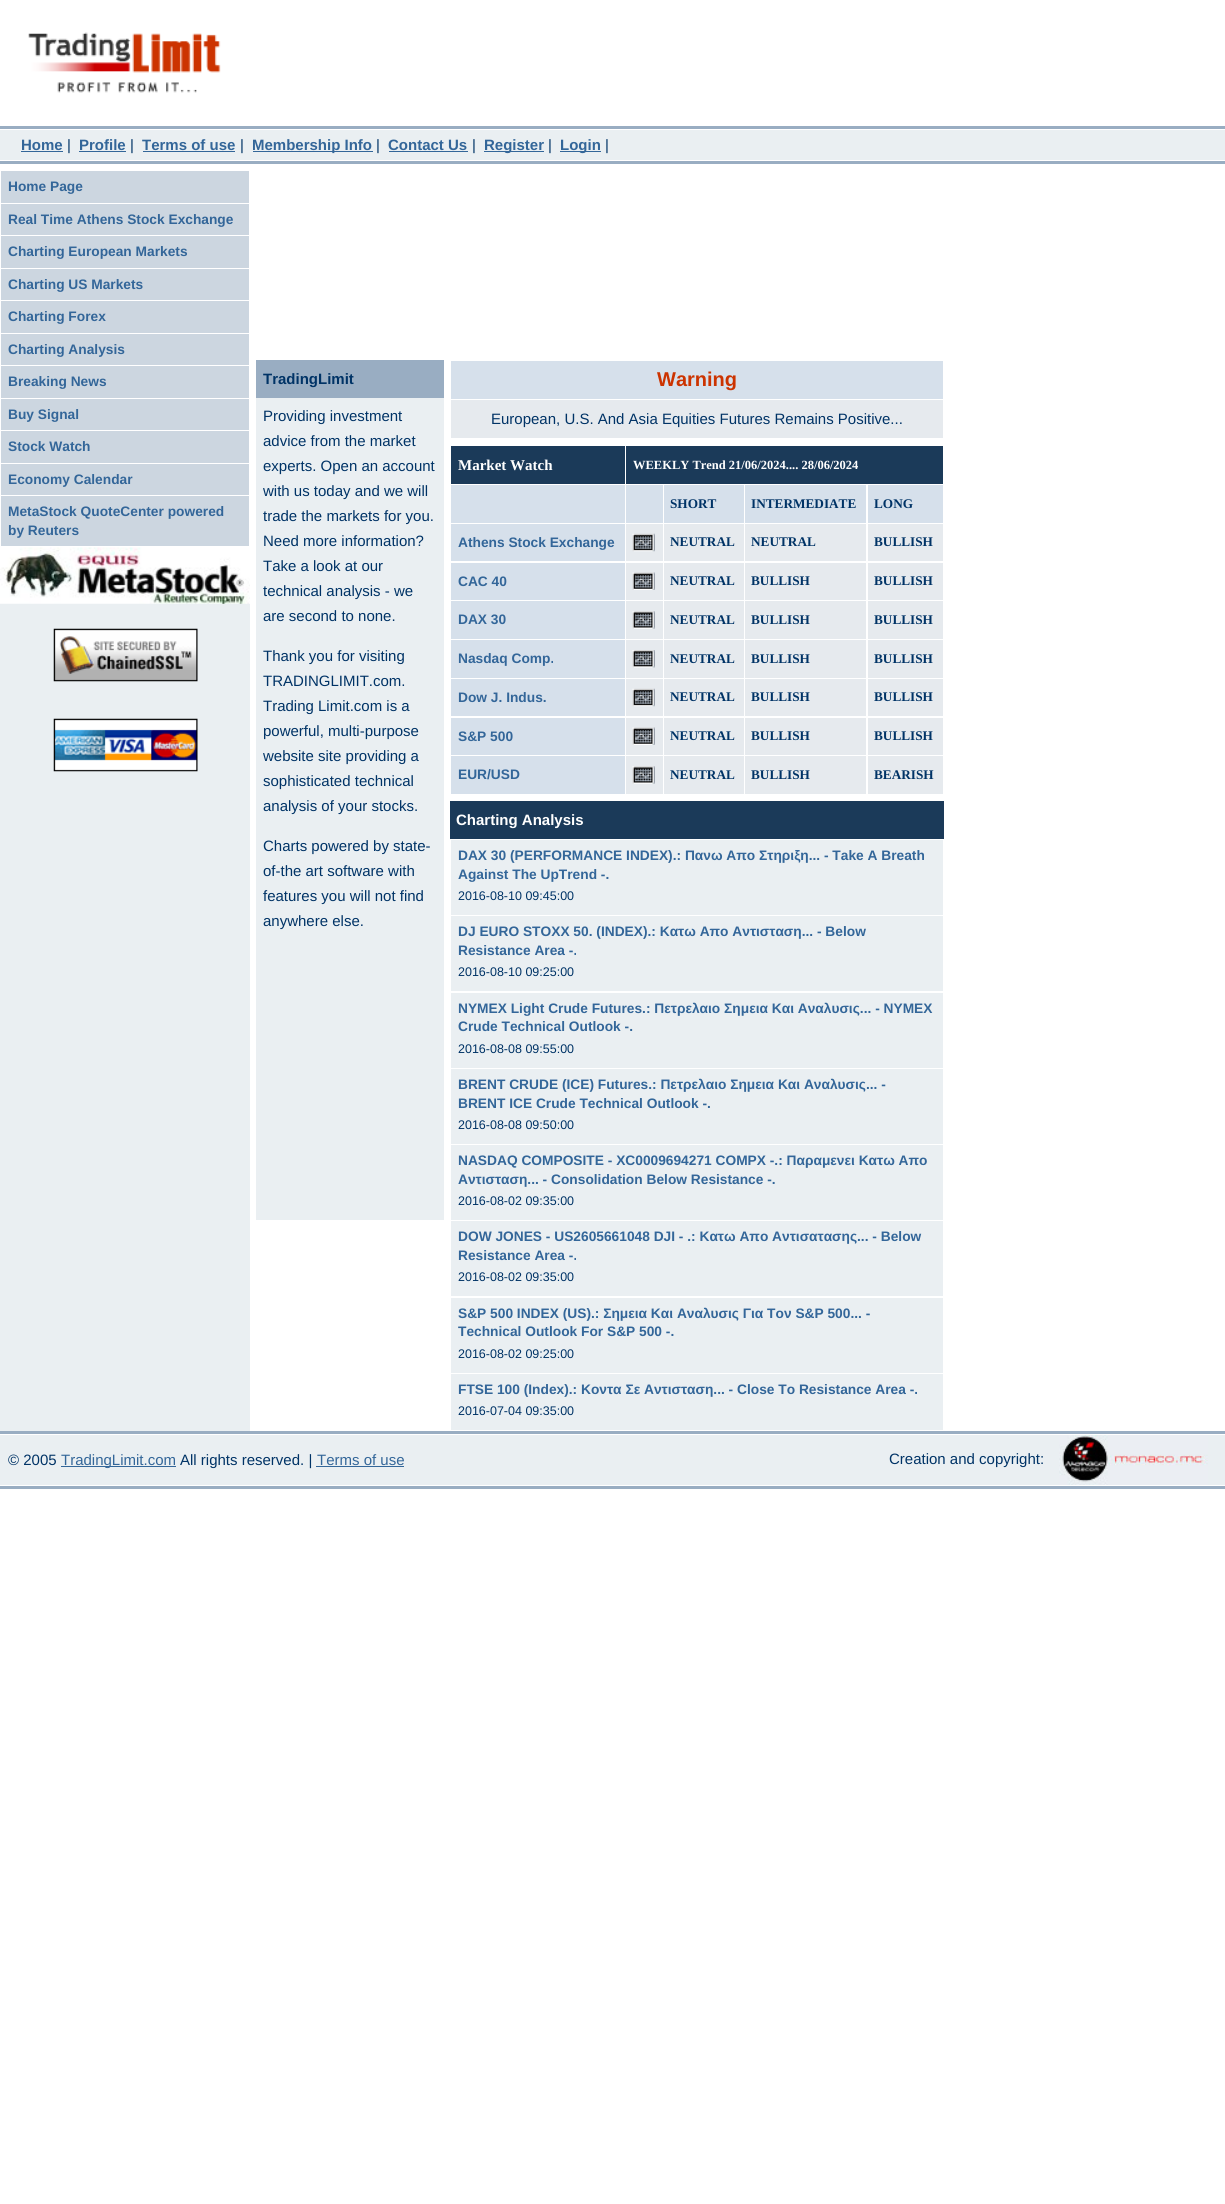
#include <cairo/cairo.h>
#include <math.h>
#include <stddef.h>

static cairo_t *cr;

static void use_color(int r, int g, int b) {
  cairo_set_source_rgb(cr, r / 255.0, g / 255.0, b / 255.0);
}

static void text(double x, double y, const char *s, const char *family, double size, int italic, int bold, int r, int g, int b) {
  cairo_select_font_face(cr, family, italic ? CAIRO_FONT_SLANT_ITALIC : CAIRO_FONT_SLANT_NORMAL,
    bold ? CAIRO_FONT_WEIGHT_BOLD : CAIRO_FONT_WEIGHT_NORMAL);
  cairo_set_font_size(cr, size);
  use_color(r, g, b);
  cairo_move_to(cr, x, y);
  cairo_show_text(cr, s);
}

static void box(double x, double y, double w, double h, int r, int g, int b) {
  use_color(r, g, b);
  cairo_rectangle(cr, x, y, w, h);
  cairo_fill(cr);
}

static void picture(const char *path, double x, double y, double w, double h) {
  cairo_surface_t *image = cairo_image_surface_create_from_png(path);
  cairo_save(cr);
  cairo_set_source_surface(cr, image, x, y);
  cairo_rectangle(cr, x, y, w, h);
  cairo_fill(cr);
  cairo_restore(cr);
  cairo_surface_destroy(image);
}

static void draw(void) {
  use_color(255, 255, 255);
  cairo_paint(cr);
  picture("img_01.png", 28, 32, 193, 61);
  box(0, 126, 1225, 3, 153, 173, 194);
  box(0, 130, 1225, 30, 234, 239, 242);
  box(21, 151, 42, 1, 51, 102, 153);
  box(79, 151, 47, 1, 51, 102, 153);
  box(143, 151, 92, 1, 51, 102, 153);
  box(253, 151, 120, 1, 51, 102, 153);
  box(389, 151, 79, 1, 51, 102, 153);
  box(484, 151, 60, 1, 51, 102, 153);
  box(560, 151, 41, 1, 51, 102, 153);
  box(0, 161, 1225, 3, 153, 173, 194);
  box(0, 603, 250, 828, 234, 239, 242);
  box(1, 171, 248, 32, 204, 214, 224);
  box(1, 204, 248, 31, 204, 214, 224);
  box(1, 236, 248, 32, 204, 214, 224);
  box(1, 269, 248, 31, 204, 214, 224);
  box(1, 301, 248, 32, 204, 214, 224);
  box(1, 334, 248, 31, 204, 214, 224);
  box(1, 366, 248, 32, 204, 214, 224);
  box(1, 399, 248, 31, 204, 214, 224);
  box(1, 431, 248, 32, 204, 214, 224);
  box(1, 464, 248, 31, 204, 214, 224);
  box(1, 496, 248, 50, 204, 214, 224);
  picture("img_02.png", 0, 547, 250, 57);
  picture("img_03.png", 53, 628, 145, 54);
  picture("img_04.png", 53, 718, 145, 54);
  box(256, 360, 188, 38, 153, 173, 194);
  box(256, 398, 188, 822, 234, 239, 242);
  box(451, 361, 492, 38, 214, 224, 235);
  box(451, 400, 492, 38, 230, 234, 238);
  box(451, 446, 174, 38, 27, 58, 89);
  box(626, 446, 317, 38, 27, 58, 89);
  box(451, 485, 174, 38, 214, 224, 235);
  box(626, 485, 37, 38, 214, 224, 235);
  box(664, 485, 80, 38, 214, 224, 235);
  box(745, 485, 121, 38, 214, 224, 235);
  box(868, 485, 75, 38, 214, 224, 235);
  box(451, 524, 174, 37, 214, 224, 235);
  box(626, 524, 37, 37, 230, 234, 238);
  picture("img_05.png", 632, 533, 23, 19);
  box(664, 524, 80, 37, 230, 234, 238);
  box(745, 524, 121, 37, 230, 234, 238);
  box(868, 524, 75, 37, 230, 234, 238);
  box(451, 563, 174, 37, 214, 224, 235);
  box(626, 563, 37, 37, 230, 234, 238);
  picture("img_06.png", 632, 572, 23, 18);
  box(664, 563, 80, 37, 230, 234, 238);
  box(745, 563, 121, 37, 230, 234, 238);
  box(868, 563, 75, 37, 230, 234, 238);
  box(451, 601, 174, 38, 214, 224, 235);
  box(626, 601, 37, 38, 230, 234, 238);
  picture("img_07.png", 632, 611, 23, 18);
  box(664, 601, 80, 38, 230, 234, 238);
  box(745, 601, 121, 38, 230, 234, 238);
  box(868, 601, 75, 38, 230, 234, 238);
  box(451, 640, 174, 38, 214, 224, 235);
  box(626, 640, 37, 38, 230, 234, 238);
  picture("img_08.png", 632, 650, 23, 18);
  box(664, 640, 80, 38, 230, 234, 238);
  box(745, 640, 121, 38, 230, 234, 238);
  box(868, 640, 75, 38, 230, 234, 238);
  box(451, 679, 174, 37, 214, 224, 235);
  box(626, 679, 37, 37, 230, 234, 238);
  picture("img_05.png", 632, 688, 23, 19);
  box(664, 679, 80, 37, 230, 234, 238);
  box(745, 679, 121, 37, 230, 234, 238);
  box(868, 679, 75, 37, 230, 234, 238);
  box(451, 718, 174, 37, 214, 224, 235);
  box(626, 718, 37, 37, 230, 234, 238);
  picture("img_06.png", 632, 727, 23, 18);
  box(664, 718, 80, 37, 230, 234, 238);
  box(745, 718, 121, 37, 230, 234, 238);
  box(868, 718, 75, 37, 230, 234, 238);
  box(451, 756, 174, 38, 214, 224, 235);
  box(626, 756, 37, 38, 230, 234, 238);
  picture("img_07.png", 632, 766, 23, 18);
  box(664, 756, 80, 38, 230, 234, 238);
  box(745, 756, 121, 38, 230, 234, 238);
  box(868, 756, 75, 38, 230, 234, 238);
  box(450, 801, 494, 38, 27, 58, 89);
  box(451, 840, 492, 75, 234, 239, 242);
  box(451, 916, 492, 75, 234, 239, 242);
  box(451, 993, 492, 75, 234, 239, 242);
  box(451, 1069, 492, 75, 234, 239, 242);
  box(451, 1145, 492, 75, 234, 239, 242);
  box(451, 1221, 492, 75, 234, 239, 242);
  box(451, 1298, 492, 75, 234, 239, 242);
  box(451, 1374, 492, 56, 234, 239, 242);
  box(0, 1431, 1225, 3, 153, 173, 194);
  box(0, 1435, 1225, 50, 234, 239, 242);
  box(61, 1466, 115, 1, 51, 102, 153);
  box(316, 1466, 88, 1, 51, 102, 153);
  picture("img_09.png", 1059, 1435, 149, 50);
  box(0, 1486, 1225, 3, 153, 173, 194);
  text(21, 150, "Home", "Liberation Sans", 15, 0, 1, 51, 102, 153);
  text(67, 150, "|", "Liberation Sans", 15, 0, 0, 0, 51, 102);
  text(79, 150, "Profile", "Liberation Sans", 15, 0, 1, 51, 102, 153);
  text(130, 150, "|", "Liberation Sans", 15, 0, 0, 0, 51, 102);
  text(142, 150, "Terms of use", "Liberation Sans", 15, 0, 1, 51, 102, 153);
  text(240, 150, "|", "Liberation Sans", 15, 0, 0, 0, 51, 102);
  text(252, 150, "Membership Info", "Liberation Sans", 15, 0, 1, 51, 102, 153);
  text(376, 150, "|", "Liberation Sans", 15, 0, 0, 0, 51, 102);
  text(388, 150, "Contact Us", "Liberation Sans", 15, 0, 1, 51, 102, 153);
  text(472, 150, "|", "Liberation Sans", 15, 0, 0, 0, 51, 102);
  text(484, 150, "Register", "Liberation Sans", 15, 0, 1, 51, 102, 153);
  text(548, 150, "|", "Liberation Sans", 15, 0, 0, 0, 51, 102);
  text(560, 150, "Login", "Liberation Sans", 15, 0, 1, 51, 102, 153);
  text(605, 150, "|", "Liberation Sans", 15, 0, 0, 0, 51, 102);
  text(8, 191, "Home Page", "Liberation Sans", 13.75, 0, 1, 51, 102, 153);
  text(8, 224, "Real Time Athens Stock Exchange", "Liberation Sans", 13.75, 0, 1, 51, 102, 153);
  text(8, 256, "Charting European Markets", "Liberation Sans", 13.75, 0, 1, 51, 102, 153);
  text(8, 289, "Charting US Markets", "Liberation Sans", 13.75, 0, 1, 51, 102, 153);
  text(8, 321, "Charting Forex", "Liberation Sans", 13.75, 0, 1, 51, 102, 153);
  text(8, 354, "Charting Analysis", "Liberation Sans", 13.75, 0, 1, 51, 102, 153);
  text(8, 386, "Breaking News", "Liberation Sans", 13.75, 0, 1, 51, 102, 153);
  text(8, 419, "Buy Signal", "Liberation Sans", 13.75, 0, 1, 51, 102, 153);
  text(8, 451, "Stock Watch", "Liberation Sans", 13.75, 0, 1, 51, 102, 153);
  text(8, 484, "Economy Calendar", "Liberation Sans", 13.75, 0, 1, 51, 102, 153);
  text(8, 516, "MetaStock QuoteCenter powered", "Liberation Sans", 13.75, 0, 1, 51, 102, 153);
  text(8, 535, "by Reuters", "Liberation Sans", 13.75, 0, 1, 51, 102, 153);
  text(263, 384, "TradingLimit", "Liberation Sans", 15, 0, 1, 0, 51, 102);
  text(263, 421, "Providing investment", "Liberation Sans", 15, 0, 0, 0, 51, 102);
  text(263, 446, "advice from the market", "Liberation Sans", 15, 0, 0, 0, 51, 102);
  text(263, 471, "experts. Open an account", "Liberation Sans", 15, 0, 0, 0, 51, 102);
  text(263, 496, "with us today and we will", "Liberation Sans", 15, 0, 0, 0, 51, 102);
  text(263, 521, "trade the markets for you.", "Liberation Sans", 15, 0, 0, 0, 51, 102);
  text(263, 546, "Need more information?", "Liberation Sans", 15, 0, 0, 0, 51, 102);
  text(263, 571, "Take a look at our", "Liberation Sans", 15, 0, 0, 0, 51, 102);
  text(263, 596, "technical analysis - we", "Liberation Sans", 15, 0, 0, 0, 51, 102);
  text(263, 621, "are second to none.", "Liberation Sans", 15, 0, 0, 0, 51, 102);
  text(263, 661, "Thank you for visiting", "Liberation Sans", 15, 0, 0, 0, 51, 102);
  text(263, 686, "TRADINGLIMIT.com.", "Liberation Sans", 15, 0, 0, 0, 51, 102);
  text(263, 711, "Trading Limit.com is a", "Liberation Sans", 15, 0, 0, 0, 51, 102);
  text(263, 736, "powerful, multi-purpose", "Liberation Sans", 15, 0, 0, 0, 51, 102);
  text(263, 761, "website site providing a", "Liberation Sans", 15, 0, 0, 0, 51, 102);
  text(263, 786, "sophisticated technical", "Liberation Sans", 15, 0, 0, 0, 51, 102);
  text(263, 811, "analysis of your stocks.", "Liberation Sans", 15, 0, 0, 0, 51, 102);
  text(263, 851, "Charts powered by state-", "Liberation Sans", 15, 0, 0, 0, 51, 102);
  text(263, 876, "of-the art software with", "Liberation Sans", 15, 0, 0, 0, 51, 102);
  text(263, 901, "features you will not find", "Liberation Sans", 15, 0, 0, 0, 51, 102);
  text(263, 926, "anywhere else.", "Liberation Sans", 15, 0, 0, 0, 51, 102);
  text(657, 386, "Warning", "Liberation Sans", 20, 0, 1, 204, 51, 0);
  text(491, 424, "European, U.S. And Asia Equities Futures Remains Positive...", "Liberation Sans", 15, 0, 0, 0, 51, 102);
  text(458, 470, "Market Watch", "Liberation Serif", 15, 0, 1, 255, 255, 255);
  text(633, 469, "WEEKLY Trend 21/06/2024.... 28/06/2024", "Liberation Serif", 12.5, 0, 1, 255, 255, 255);
  text(670, 508, "SHORT", "Liberation Serif", 13.25, 0, 1, 0, 51, 102);
  text(751, 508, "INTERMEDIATE", "Liberation Serif", 13.25, 0, 1, 0, 51, 102);
  text(874, 508, "LONG", "Liberation Serif", 13.25, 0, 1, 0, 51, 102);
  text(458, 547, "Athens Stock Exchange", "Liberation Sans", 13.75, 0, 1, 51, 102, 153);
  text(670, 546, "NEUTRAL", "Liberation Serif", 13.25, 0, 1, 0, 51, 102);
  text(751, 546, "NEUTRAL", "Liberation Serif", 13.25, 0, 1, 0, 51, 102);
  text(874, 546, "BULLISH", "Liberation Serif", 13.25, 0, 1, 0, 51, 102);
  text(458, 586, "CAC 40", "Liberation Sans", 13.75, 0, 1, 51, 102, 153);
  text(670, 585, "NEUTRAL", "Liberation Serif", 13.25, 0, 1, 0, 51, 102);
  text(751, 585, "BULLISH", "Liberation Serif", 13.25, 0, 1, 0, 51, 102);
  text(874, 585, "BULLISH", "Liberation Serif", 13.25, 0, 1, 0, 51, 102);
  text(458, 624, "DAX 30", "Liberation Sans", 13.75, 0, 1, 51, 102, 153);
  text(670, 624, "NEUTRAL", "Liberation Serif", 13.25, 0, 1, 0, 51, 102);
  text(751, 624, "BULLISH", "Liberation Serif", 13.25, 0, 1, 0, 51, 102);
  text(874, 624, "BULLISH", "Liberation Serif", 13.25, 0, 1, 0, 51, 102);
  text(458, 663, "Nasdaq Comp.", "Liberation Sans", 13.75, 0, 1, 51, 102, 153);
  text(670, 663, "NEUTRAL", "Liberation Serif", 13.25, 0, 1, 0, 51, 102);
  text(751, 663, "BULLISH", "Liberation Serif", 13.25, 0, 1, 0, 51, 102);
  text(874, 663, "BULLISH", "Liberation Serif", 13.25, 0, 1, 0, 51, 102);
  text(458, 702, "Dow J. Indus.", "Liberation Sans", 13.75, 0, 1, 51, 102, 153);
  text(670, 701, "NEUTRAL", "Liberation Serif", 13.25, 0, 1, 0, 51, 102);
  text(751, 701, "BULLISH", "Liberation Serif", 13.25, 0, 1, 0, 51, 102);
  text(874, 701, "BULLISH", "Liberation Serif", 13.25, 0, 1, 0, 51, 102);
  text(458, 741, "S&P 500", "Liberation Sans", 13.75, 0, 1, 51, 102, 153);
  text(670, 740, "NEUTRAL", "Liberation Serif", 13.25, 0, 1, 0, 51, 102);
  text(751, 740, "BULLISH", "Liberation Serif", 13.25, 0, 1, 0, 51, 102);
  text(874, 740, "BULLISH", "Liberation Serif", 13.25, 0, 1, 0, 51, 102);
  text(458, 779, "EUR/USD", "Liberation Sans", 13.75, 0, 1, 51, 102, 153);
  text(670, 779, "NEUTRAL", "Liberation Serif", 13.25, 0, 1, 0, 51, 102);
  text(751, 779, "BULLISH", "Liberation Serif", 13.25, 0, 1, 0, 51, 102);
  text(874, 779, "BEARISH", "Liberation Serif", 13.25, 0, 1, 0, 51, 102);
  text(456, 825, "Charting Analysis", "Liberation Sans", 15, 0, 1, 255, 255, 255);
  text(458, 860, "DAX 30 (PERFORMANCE INDEX).: Πανω Απο Στηριξη... - Take A Breath", "Liberation Sans", 13.75, 0, 1, 51, 102, 153);
  text(458, 879, "Against The UpTrend -.", "Liberation Sans", 13.75, 0, 1, 51, 102, 153);
  text(458, 900, "2016-08-10 09:45:00", "Liberation Sans", 12.5, 0, 0, 0, 51, 102);
  text(458, 936, "DJ EURO STOXX 50. (INDEX).: Κατω Απο Αντισταση... - Below", "Liberation Sans", 13.75, 0, 1, 51, 102, 153);
  text(458, 955, "Resistance Area -.", "Liberation Sans", 13.75, 0, 1, 51, 102, 153);
  text(458, 976, "2016-08-10 09:25:00", "Liberation Sans", 12.5, 0, 0, 0, 51, 102);
  text(458, 1013, "NYMEX Light Crude Futures.: Πετρελαιο Σημεια Και Αναλυσις... - NYMEX", "Liberation Sans", 13.75, 0, 1, 51, 102, 153);
  text(458, 1031, "Crude Technical Outlook -.", "Liberation Sans", 13.75, 0, 1, 51, 102, 153);
  text(458, 1053, "2016-08-08 09:55:00", "Liberation Sans", 12.5, 0, 0, 0, 51, 102);
  text(458, 1089, "BRENT CRUDE (ICE) Futures.: Πετρελαιο Σημεια Και Αναλυσις... -", "Liberation Sans", 13.75, 0, 1, 51, 102, 153);
  text(458, 1108, "BRENT ICE Crude Technical Outlook -.", "Liberation Sans", 13.75, 0, 1, 51, 102, 153);
  text(458, 1129, "2016-08-08 09:50:00", "Liberation Sans", 12.5, 0, 0, 0, 51, 102);
  text(458, 1165, "NASDAQ COMPOSITE - XC0009694271 COMPX -.: Παραμενει Κατω Απο", "Liberation Sans", 13.75, 0, 1, 51, 102, 153);
  text(458, 1184, "Αντισταση... - Consolidation Below Resistance -.", "Liberation Sans", 13.75, 0, 1, 51, 102, 153);
  text(458, 1205, "2016-08-02 09:35:00", "Liberation Sans", 12.5, 0, 0, 0, 51, 102);
  text(458, 1241, "DOW JONES - US2605661048 DJI - .: Κατω Απο Αντισατασης... - Below", "Liberation Sans", 13.75, 0, 1, 51, 102, 153);
  text(458, 1260, "Resistance Area -.", "Liberation Sans", 13.75, 0, 1, 51, 102, 153);
  text(458, 1281, "2016-08-02 09:35:00", "Liberation Sans", 12.5, 0, 0, 0, 51, 102);
  text(458, 1318, "S&P 500 INDEX (US).: Σημεια Και Αναλυσις Για Τον S&P 500... -", "Liberation Sans", 13.75, 0, 1, 51, 102, 153);
  text(458, 1336, "Technical Outlook For S&P 500 -.", "Liberation Sans", 13.75, 0, 1, 51, 102, 153);
  text(458, 1358, "2016-08-02 09:25:00", "Liberation Sans", 12.5, 0, 0, 0, 51, 102);
  text(458, 1394, "FTSE 100 (Index).: Κοντα Σε Αντισταση... - Close To Resistance Area -.", "Liberation Sans", 13.75, 0, 1, 51, 102, 153);
  text(458, 1415, "2016-07-04 09:35:00", "Liberation Sans", 12.5, 0, 0, 0, 51, 102);
  text(8, 1465, "© 2005", "Liberation Sans", 15, 0, 0, 0, 51, 102);
  text(61, 1465, "TradingLimit.com", "Liberation Sans", 15, 0, 0, 51, 102, 153);
  text(180, 1465, "All rights reserved. |", "Liberation Sans", 15, 0, 0, 0, 51, 102);
  text(317, 1465, "Terms of use", "Liberation Sans", 15, 0, 0, 51, 102, 153);
  text(889, 1464, "Creation and copyright:", "Liberation Sans", 15, 0, 0, 0, 51, 102);
}

int main(void) {
  cairo_surface_t *surface = cairo_image_surface_create(CAIRO_FORMAT_RGB24, 1225, 2204);
  cr = cairo_create(surface);
  cairo_font_options_t *options = cairo_font_options_create();
  cairo_font_options_set_hint_metrics(options, CAIRO_HINT_METRICS_OFF);
  cairo_font_options_set_hint_style(options, CAIRO_HINT_STYLE_NONE);
  cairo_set_font_options(cr, options);
  cairo_set_miter_limit(cr, 4);
  draw();
  cairo_surface_write_to_png(surface, "out.png");
  cairo_font_options_destroy(options);
  cairo_destroy(cr);
  cairo_surface_destroy(surface);
  return 0;
}
